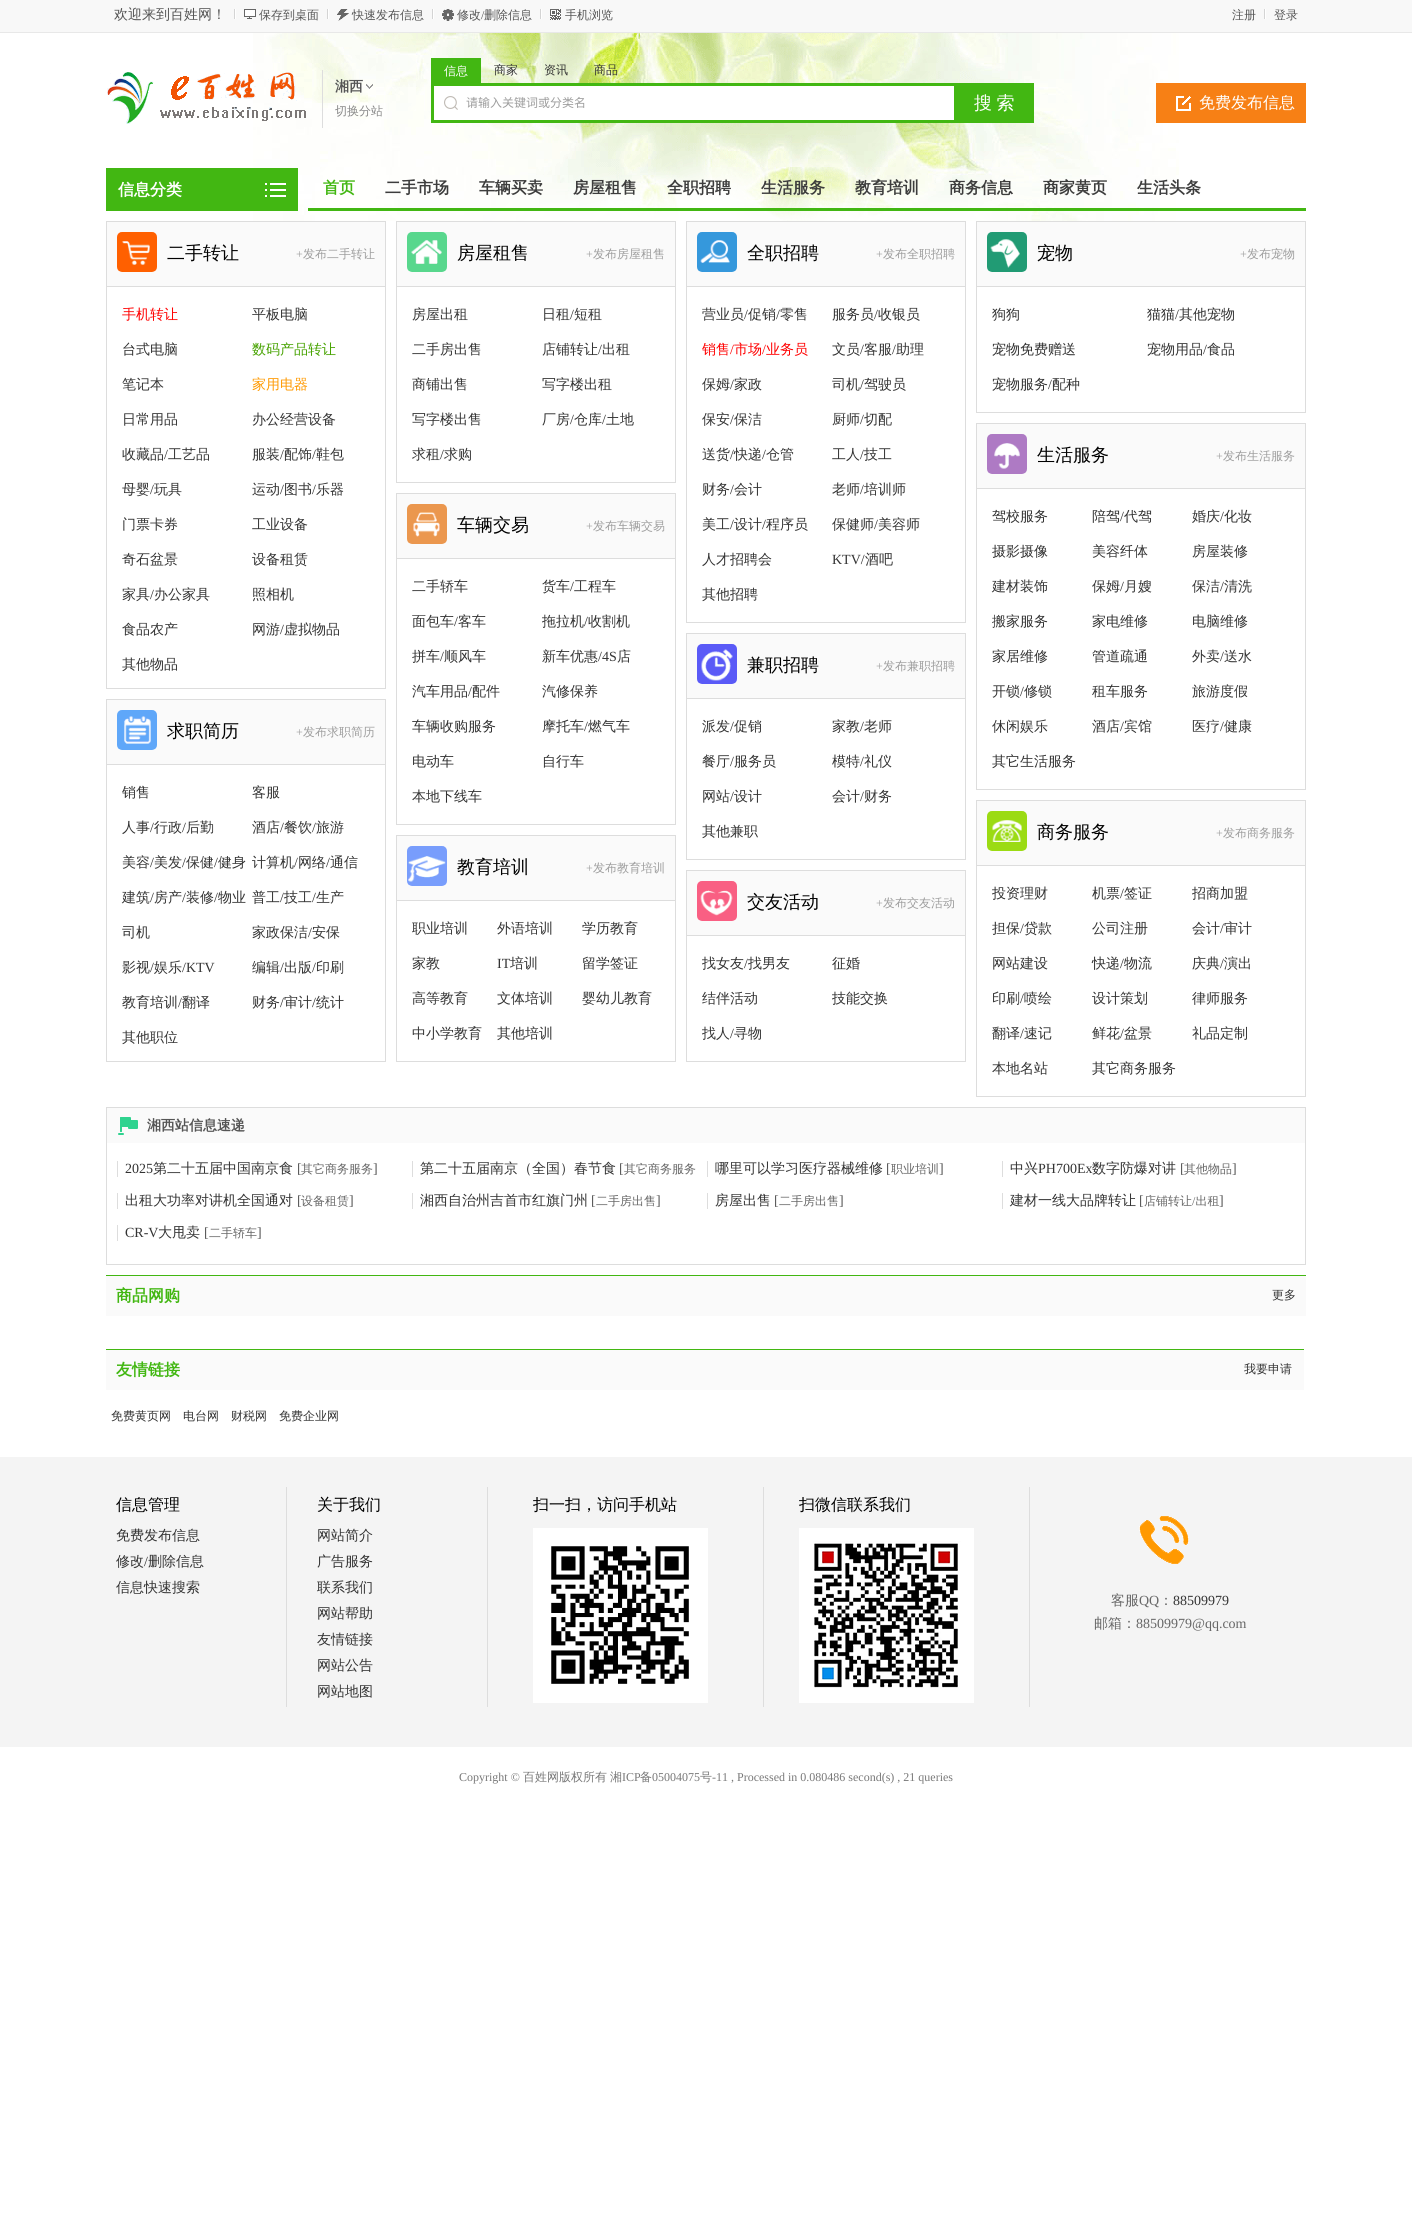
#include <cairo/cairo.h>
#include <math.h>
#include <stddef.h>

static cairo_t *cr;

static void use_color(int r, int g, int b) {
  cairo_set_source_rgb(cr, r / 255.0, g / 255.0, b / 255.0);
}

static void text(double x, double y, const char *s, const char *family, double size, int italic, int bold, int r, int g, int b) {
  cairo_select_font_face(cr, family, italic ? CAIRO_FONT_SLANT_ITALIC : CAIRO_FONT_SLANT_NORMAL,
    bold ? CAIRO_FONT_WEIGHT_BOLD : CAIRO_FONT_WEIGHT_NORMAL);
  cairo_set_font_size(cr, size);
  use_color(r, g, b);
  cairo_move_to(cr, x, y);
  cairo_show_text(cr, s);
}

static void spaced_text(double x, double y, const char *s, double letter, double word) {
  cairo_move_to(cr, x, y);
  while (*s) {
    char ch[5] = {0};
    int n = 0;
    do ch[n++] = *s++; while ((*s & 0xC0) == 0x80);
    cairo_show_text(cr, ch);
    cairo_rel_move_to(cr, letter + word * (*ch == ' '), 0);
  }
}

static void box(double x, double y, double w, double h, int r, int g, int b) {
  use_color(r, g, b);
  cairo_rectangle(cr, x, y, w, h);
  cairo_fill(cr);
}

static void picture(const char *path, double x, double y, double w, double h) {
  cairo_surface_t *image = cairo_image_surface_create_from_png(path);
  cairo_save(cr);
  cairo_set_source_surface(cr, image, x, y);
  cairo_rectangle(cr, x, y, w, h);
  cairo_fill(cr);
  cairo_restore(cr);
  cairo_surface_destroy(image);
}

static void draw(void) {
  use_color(255, 255, 255);
  cairo_paint(cr);
  picture("img_01.png", 253, 33, 926, 188);
  box(0, 0, 1412, 32, 248, 248, 248);
  box(0, 32, 1412, 1, 232, 232, 232);
  box(235, 9, 1, 10, 255, 255, 255);
  box(234, 9, 1, 10, 212, 212, 212);
  picture("img_02.png", 244, 9, 12, 10);
  box(328, 9, 1, 10, 255, 255, 255);
  box(327, 9, 1, 10, 212, 212, 212);
  picture("img_03.png", 337, 9, 12, 12);
  box(433, 9, 1, 10, 255, 255, 255);
  box(432, 9, 1, 10, 212, 212, 212);
  picture("img_04.png", 442, 9, 12, 12);
  box(541, 9, 1, 10, 255, 255, 255);
  box(540, 9, 1, 10, 212, 212, 212);
  picture("img_05.png", 550, 9, 11, 11);
  box(1265, 9, 1, 10, 255, 255, 255);
  box(1264, 9, 1, 10, 212, 212, 212);
  picture("img_06.png", 107, 71, 199, 53);
  box(322, 70, 1, 58, 221, 221, 221);
  picture("img_07.png", 366, 84, 7, 5);
  box(431, 58, 50, 25, 66, 183, 18);
  box(434, 86, 520, 34, 255, 255, 255);
  picture("img_08.png", 444, 96, 14, 14);
  box(431, 83, 523, 3, 66, 183, 18);
  box(431, 120, 523, 3, 66, 183, 18);
  box(431, 83, 3, 40, 66, 183, 18);
  box(954, 83, 80, 40, 66, 183, 18);
  box(1156, 83, 150, 40, 247, 128, 21);
  picture("img_09.png", 1176, 96, 15, 15);
  cairo_rectangle(cr, 107, 169, 190, 41);
  use_color(66, 183, 18);
  cairo_stroke(cr);
  box(108, 170, 188, 39, 66, 183, 18);
  picture("img_10.png", 265, 183, 21, 14);
  box(308, 208, 998, 3, 66, 183, 18);
  use_color(250, 250, 250);
  cairo_rectangle(cr, 106.5, 221.5, 279, 65);
  cairo_fill_preserve(cr);
  use_color(221, 221, 221);
  cairo_set_line_width(cr, 1);
  cairo_stroke(cr);
  picture("img_11.png", 117, 232, 40, 40);
  box(385, 287, 1, 402, 221, 221, 221);
  box(106, 688, 280, 1, 221, 221, 221);
  box(106, 287, 1, 402, 221, 221, 221);
  use_color(250, 250, 250);
  cairo_rectangle(cr, 106.5, 699.5, 279, 65);
  cairo_fill_preserve(cr);
  use_color(221, 221, 221);
  cairo_stroke(cr);
  picture("img_12.png", 117, 710, 40, 40);
  box(385, 765, 1, 297, 221, 221, 221);
  box(106, 1061, 280, 1, 221, 221, 221);
  box(106, 765, 1, 297, 221, 221, 221);
  use_color(250, 250, 250);
  cairo_rectangle(cr, 396.5, 221.5, 279, 65);
  cairo_fill_preserve(cr);
  use_color(221, 221, 221);
  cairo_stroke(cr);
  picture("img_13.png", 407, 232, 40, 40);
  box(675, 287, 1, 196, 221, 221, 221);
  box(396, 482, 280, 1, 221, 221, 221);
  box(396, 287, 1, 196, 221, 221, 221);
  use_color(250, 250, 250);
  cairo_rectangle(cr, 396.5, 493.5, 279, 65);
  cairo_fill_preserve(cr);
  use_color(221, 221, 221);
  cairo_stroke(cr);
  picture("img_14.png", 407, 504, 40, 40);
  box(675, 559, 1, 266, 221, 221, 221);
  box(396, 824, 280, 1, 221, 221, 221);
  box(396, 559, 1, 266, 221, 221, 221);
  use_color(250, 250, 250);
  cairo_rectangle(cr, 396.5, 835.5, 279, 65);
  cairo_fill_preserve(cr);
  use_color(221, 221, 221);
  cairo_stroke(cr);
  picture("img_15.png", 407, 846, 40, 40);
  box(675, 901, 1, 161, 221, 221, 221);
  box(396, 1061, 280, 1, 221, 221, 221);
  box(396, 901, 1, 161, 221, 221, 221);
  use_color(250, 250, 250);
  cairo_rectangle(cr, 686.5, 221.5, 279, 65);
  cairo_fill_preserve(cr);
  use_color(221, 221, 221);
  cairo_stroke(cr);
  picture("img_16.png", 697, 232, 40, 40);
  box(965, 287, 1, 336, 221, 221, 221);
  box(686, 622, 280, 1, 221, 221, 221);
  box(686, 287, 1, 336, 221, 221, 221);
  use_color(250, 250, 250);
  cairo_rectangle(cr, 686.5, 633.5, 279, 65);
  cairo_fill_preserve(cr);
  use_color(221, 221, 221);
  cairo_stroke(cr);
  picture("img_17.png", 697, 644, 40, 40);
  box(965, 699, 1, 161, 221, 221, 221);
  box(686, 859, 280, 1, 221, 221, 221);
  box(686, 699, 1, 161, 221, 221, 221);
  use_color(250, 250, 250);
  cairo_rectangle(cr, 686.5, 870.5, 279, 65);
  cairo_fill_preserve(cr);
  use_color(221, 221, 221);
  cairo_stroke(cr);
  picture("img_18.png", 697, 881, 40, 40);
  box(965, 936, 1, 126, 221, 221, 221);
  box(686, 1061, 280, 1, 221, 221, 221);
  box(686, 936, 1, 126, 221, 221, 221);
  use_color(250, 250, 250);
  cairo_rectangle(cr, 976.5, 221.5, 329, 65);
  cairo_fill_preserve(cr);
  use_color(221, 221, 221);
  cairo_stroke(cr);
  picture("img_19.png", 987, 232, 40, 40);
  box(1305, 287, 1, 126, 221, 221, 221);
  box(976, 412, 330, 1, 221, 221, 221);
  box(976, 287, 1, 126, 221, 221, 221);
  use_color(250, 250, 250);
  cairo_rectangle(cr, 976.5, 423.5, 329, 65);
  cairo_fill_preserve(cr);
  use_color(221, 221, 221);
  cairo_stroke(cr);
  picture("img_20.png", 987, 434, 40, 40);
  box(1305, 489, 1, 301, 221, 221, 221);
  box(976, 789, 330, 1, 221, 221, 221);
  box(976, 489, 1, 301, 221, 221, 221);
  use_color(250, 250, 250);
  cairo_rectangle(cr, 976.5, 800.5, 329, 65);
  cairo_fill_preserve(cr);
  use_color(221, 221, 221);
  cairo_stroke(cr);
  picture("img_21.png", 987, 811, 40, 40);
  box(1305, 866, 1, 231, 221, 221, 221);
  box(976, 1096, 330, 1, 221, 221, 221);
  box(976, 866, 1, 231, 221, 221, 221);
  cairo_rectangle(cr, 106.5, 1107.5, 1199, 157);
  cairo_stroke(cr);
  box(107, 1108, 1198, 35, 250, 250, 250);
  picture("img_22.png", 118, 1117, 20, 18);
  box(117, 1161, 1, 16, 221, 221, 221);
  box(412, 1161, 1, 16, 221, 221, 221);
  box(707, 1161, 1, 16, 221, 221, 221);
  box(1002, 1161, 1, 16, 221, 221, 221);
  box(117, 1193, 1, 16, 221, 221, 221);
  box(412, 1193, 1, 16, 221, 221, 221);
  box(707, 1193, 1, 16, 221, 221, 221);
  box(1002, 1193, 1, 16, 221, 221, 221);
  box(117, 1225, 1, 16, 221, 221, 221);
  box(106, 1276, 1200, 40, 250, 250, 250);
  box(106, 1275, 1200, 1, 66, 183, 18);
  box(106, 1350, 1198, 40, 250, 250, 250);
  box(106, 1349, 1198, 1, 66, 183, 18);
  box(0, 1457, 1412, 290, 244, 244, 244);
  box(286, 1487, 1, 220, 221, 221, 221);
  box(487, 1487, 1, 220, 221, 221, 221);
  box(763, 1487, 1, 220, 221, 221, 221);
  picture("img_23.png", 533, 1528, 175, 175);
  box(1029, 1487, 1, 220, 221, 221, 221);
  picture("img_24.png", 799, 1528, 175, 175);
  picture("img_25.png", 1139, 1516, 50, 48);
  text(114, 19, "欢迎来到百姓网！", "WenQuanYi Zen Hei Medium", 14, 0, 0, 85, 85, 85);
  text(259, 19, "保存到桌面", "WenQuanYi Zen Hei Medium", 12, 0, 0, 85, 85, 85);
  text(352, 19, "快速发布信息", "WenQuanYi Zen Hei Medium", 12, 0, 0, 85, 85, 85);
  text(457, 19, "修改", "WenQuanYi Zen Hei Medium", 12, 0, 0, 85, 85, 85);
  text(481, 19, "/", "Liberation Serif", 12, 0, 0, 85, 85, 85);
  text(484, 19, "删除信息", "WenQuanYi Zen Hei Medium", 12, 0, 0, 85, 85, 85);
  text(565, 19, "手机浏览", "WenQuanYi Zen Hei Medium", 12, 0, 0, 85, 85, 85);
  text(1232, 19, "注册", "WenQuanYi Zen Hei Medium", 12, 0, 0, 85, 85, 85);
  text(1274, 19, "登录", "WenQuanYi Zen Hei Medium", 12, 0, 0, 85, 85, 85);
  text(335, 91, "湘西", "WenQuanYi Zen Hei", 14, 0, 1, 85, 85, 85);
  text(335, 115, "切换分站", "WenQuanYi Zen Hei Medium", 12, 0, 0, 136, 136, 136);
  text(444, 75, "信息", "WenQuanYi Zen Hei Medium", 12, 0, 0, 255, 255, 255);
  text(494, 74, "商家", "WenQuanYi Zen Hei Medium", 12, 0, 0, 51, 51, 51);
  text(544, 74, "资讯", "WenQuanYi Zen Hei Medium", 12, 0, 0, 51, 51, 51);
  text(594, 74, "商品", "WenQuanYi Zen Hei Medium", 12, 0, 0, 51, 51, 51);
  text(466, 107, "请输入关键词或分类名", "Noto Sans CJK SC", 12, 0, 0, 157, 157, 157);
  cairo_select_font_face(cr, "WenQuanYi Zen Hei Medium", CAIRO_FONT_SLANT_NORMAL, CAIRO_FONT_WEIGHT_NORMAL);
  cairo_set_font_size(cr, 18);
  use_color(255, 255, 255);
  spaced_text(974, 109, "搜 索", 0, -1);
  text(1199, 108, "免费发布信息", "WenQuanYi Zen Hei Medium", 16, 0, 0, 255, 255, 255);
  text(118, 195, "信息分类", "WenQuanYi Zen Hei", 16, 0, 1, 255, 255, 255);
  text(323, 193, "首页", "WenQuanYi Zen Hei", 16, 0, 1, 66, 183, 18);
  text(385, 193, "二手市场", "WenQuanYi Zen Hei", 16, 0, 1, 61, 61, 61);
  text(479, 193, "车辆买卖", "WenQuanYi Zen Hei", 16, 0, 1, 61, 61, 61);
  text(573, 193, "房屋租售", "WenQuanYi Zen Hei", 16, 0, 1, 61, 61, 61);
  text(667, 193, "全职招聘", "WenQuanYi Zen Hei", 16, 0, 1, 61, 61, 61);
  text(761, 193, "生活服务", "WenQuanYi Zen Hei", 16, 0, 1, 61, 61, 61);
  text(855, 193, "教育培训", "WenQuanYi Zen Hei", 16, 0, 1, 61, 61, 61);
  text(949, 193, "商务信息", "WenQuanYi Zen Hei", 16, 0, 1, 61, 61, 61);
  text(1043, 193, "商家黄页", "WenQuanYi Zen Hei", 16, 0, 1, 61, 61, 61);
  text(1137, 193, "生活头条", "WenQuanYi Zen Hei", 16, 0, 1, 61, 61, 61);
  text(167, 259, "二手转让", "WenQuanYi Zen Hei Medium", 18, 0, 0, 0, 0, 0);
  text(296, 258, "+", "Liberation Serif", 12, 0, 0, 157, 157, 157);
  text(303, 258, "发布二手转让", "WenQuanYi Zen Hei Medium", 12, 0, 0, 157, 157, 157);
  text(122, 319, "手机转让", "WenQuanYi Zen Hei Medium", 14, 0, 0, 255, 0, 0);
  text(252, 319, "平板电脑", "WenQuanYi Zen Hei Medium", 14, 0, 0, 51, 51, 51);
  text(122, 354, "台式电脑", "WenQuanYi Zen Hei Medium", 14, 0, 0, 51, 51, 51);
  text(252, 354, "数码产品转让", "WenQuanYi Zen Hei Medium", 14, 0, 0, 70, 162, 0);
  text(122, 389, "笔记本", "WenQuanYi Zen Hei Medium", 14, 0, 0, 51, 51, 51);
  text(252, 389, "家用电器", "WenQuanYi Zen Hei Medium", 14, 0, 0, 255, 153, 0);
  text(122, 424, "日常用品", "WenQuanYi Zen Hei Medium", 14, 0, 0, 51, 51, 51);
  text(252, 424, "办公经营设备", "WenQuanYi Zen Hei Medium", 14, 0, 0, 51, 51, 51);
  text(122, 459, "收藏品", "WenQuanYi Zen Hei Medium", 14, 0, 0, 51, 51, 51);
  text(164, 459, "/", "Liberation Serif", 14, 0, 0, 51, 51, 51);
  text(168, 459, "工艺品", "WenQuanYi Zen Hei Medium", 14, 0, 0, 51, 51, 51);
  text(252, 459, "服装", "WenQuanYi Zen Hei Medium", 14, 0, 0, 51, 51, 51);
  text(280, 459, "/", "Liberation Serif", 14, 0, 0, 51, 51, 51);
  text(284, 459, "配饰", "WenQuanYi Zen Hei Medium", 14, 0, 0, 51, 51, 51);
  text(312, 459, "/", "Liberation Serif", 14, 0, 0, 51, 51, 51);
  text(316, 459, "鞋包", "WenQuanYi Zen Hei Medium", 14, 0, 0, 51, 51, 51);
  text(122, 494, "母婴", "WenQuanYi Zen Hei Medium", 14, 0, 0, 51, 51, 51);
  text(150, 494, "/", "Liberation Serif", 14, 0, 0, 51, 51, 51);
  text(154, 494, "玩具", "WenQuanYi Zen Hei Medium", 14, 0, 0, 51, 51, 51);
  text(252, 494, "运动", "WenQuanYi Zen Hei Medium", 14, 0, 0, 51, 51, 51);
  text(280, 494, "/", "Liberation Serif", 14, 0, 0, 51, 51, 51);
  text(284, 494, "图书", "WenQuanYi Zen Hei Medium", 14, 0, 0, 51, 51, 51);
  text(312, 494, "/", "Liberation Serif", 14, 0, 0, 51, 51, 51);
  text(316, 494, "乐器", "WenQuanYi Zen Hei Medium", 14, 0, 0, 51, 51, 51);
  text(122, 529, "门票卡券", "WenQuanYi Zen Hei Medium", 14, 0, 0, 51, 51, 51);
  text(252, 529, "工业设备", "WenQuanYi Zen Hei Medium", 14, 0, 0, 51, 51, 51);
  text(122, 564, "奇石盆景", "WenQuanYi Zen Hei Medium", 14, 0, 0, 51, 51, 51);
  text(252, 564, "设备租赁", "WenQuanYi Zen Hei Medium", 14, 0, 0, 51, 51, 51);
  text(122, 599, "家具", "WenQuanYi Zen Hei Medium", 14, 0, 0, 51, 51, 51);
  text(150, 599, "/", "Liberation Serif", 14, 0, 0, 51, 51, 51);
  text(154, 599, "办公家具", "WenQuanYi Zen Hei Medium", 14, 0, 0, 51, 51, 51);
  text(252, 599, "照相机", "WenQuanYi Zen Hei Medium", 14, 0, 0, 51, 51, 51);
  text(122, 634, "食品农产", "WenQuanYi Zen Hei Medium", 14, 0, 0, 51, 51, 51);
  text(252, 634, "网游", "WenQuanYi Zen Hei Medium", 14, 0, 0, 51, 51, 51);
  text(280, 634, "/", "Liberation Serif", 14, 0, 0, 51, 51, 51);
  text(284, 634, "虚拟物品", "WenQuanYi Zen Hei Medium", 14, 0, 0, 51, 51, 51);
  text(122, 669, "其他物品", "WenQuanYi Zen Hei Medium", 14, 0, 0, 51, 51, 51);
  text(167, 737, "求职简历", "WenQuanYi Zen Hei Medium", 18, 0, 0, 0, 0, 0);
  text(296, 736, "+", "Liberation Serif", 12, 0, 0, 157, 157, 157);
  text(303, 736, "发布求职简历", "WenQuanYi Zen Hei Medium", 12, 0, 0, 157, 157, 157);
  text(122, 797, "销售", "WenQuanYi Zen Hei Medium", 14, 0, 0, 51, 51, 51);
  text(252, 797, "客服", "WenQuanYi Zen Hei Medium", 14, 0, 0, 51, 51, 51);
  text(122, 832, "人事", "WenQuanYi Zen Hei Medium", 14, 0, 0, 51, 51, 51);
  text(150, 832, "/", "Liberation Serif", 14, 0, 0, 51, 51, 51);
  text(154, 832, "行政", "WenQuanYi Zen Hei Medium", 14, 0, 0, 51, 51, 51);
  text(182, 832, "/", "Liberation Serif", 14, 0, 0, 51, 51, 51);
  text(186, 832, "后勤", "WenQuanYi Zen Hei Medium", 14, 0, 0, 51, 51, 51);
  text(252, 832, "酒店", "WenQuanYi Zen Hei Medium", 14, 0, 0, 51, 51, 51);
  text(280, 832, "/", "Liberation Serif", 14, 0, 0, 51, 51, 51);
  text(284, 832, "餐饮", "WenQuanYi Zen Hei Medium", 14, 0, 0, 51, 51, 51);
  text(312, 832, "/", "Liberation Serif", 14, 0, 0, 51, 51, 51);
  text(316, 832, "旅游", "WenQuanYi Zen Hei Medium", 14, 0, 0, 51, 51, 51);
  text(122, 867, "美容", "WenQuanYi Zen Hei Medium", 14, 0, 0, 51, 51, 51);
  text(150, 867, "/", "Liberation Serif", 14, 0, 0, 51, 51, 51);
  text(154, 867, "美发", "WenQuanYi Zen Hei Medium", 14, 0, 0, 51, 51, 51);
  text(182, 867, "/", "Liberation Serif", 14, 0, 0, 51, 51, 51);
  text(186, 867, "保健", "WenQuanYi Zen Hei Medium", 14, 0, 0, 51, 51, 51);
  text(214, 867, "/", "Liberation Serif", 14, 0, 0, 51, 51, 51);
  text(218, 867, "健身", "WenQuanYi Zen Hei Medium", 14, 0, 0, 51, 51, 51);
  text(252, 867, "计算机", "WenQuanYi Zen Hei Medium", 14, 0, 0, 51, 51, 51);
  text(294, 867, "/", "Liberation Serif", 14, 0, 0, 51, 51, 51);
  text(298, 867, "网络", "WenQuanYi Zen Hei Medium", 14, 0, 0, 51, 51, 51);
  text(326, 867, "/", "Liberation Serif", 14, 0, 0, 51, 51, 51);
  text(330, 867, "通信", "WenQuanYi Zen Hei Medium", 14, 0, 0, 51, 51, 51);
  text(122, 902, "建筑", "WenQuanYi Zen Hei Medium", 14, 0, 0, 51, 51, 51);
  text(150, 902, "/", "Liberation Serif", 14, 0, 0, 51, 51, 51);
  text(154, 902, "房产", "WenQuanYi Zen Hei Medium", 14, 0, 0, 51, 51, 51);
  text(182, 902, "/", "Liberation Serif", 14, 0, 0, 51, 51, 51);
  text(186, 902, "装修", "WenQuanYi Zen Hei Medium", 14, 0, 0, 51, 51, 51);
  text(214, 902, "/", "Liberation Serif", 14, 0, 0, 51, 51, 51);
  text(218, 902, "物业", "WenQuanYi Zen Hei Medium", 14, 0, 0, 51, 51, 51);
  text(252, 902, "普工", "WenQuanYi Zen Hei Medium", 14, 0, 0, 51, 51, 51);
  text(280, 902, "/", "Liberation Serif", 14, 0, 0, 51, 51, 51);
  text(284, 902, "技工", "WenQuanYi Zen Hei Medium", 14, 0, 0, 51, 51, 51);
  text(312, 902, "/", "Liberation Serif", 14, 0, 0, 51, 51, 51);
  text(316, 902, "生产", "WenQuanYi Zen Hei Medium", 14, 0, 0, 51, 51, 51);
  text(122, 937, "司机", "WenQuanYi Zen Hei Medium", 14, 0, 0, 51, 51, 51);
  text(252, 937, "家政保洁", "WenQuanYi Zen Hei Medium", 14, 0, 0, 51, 51, 51);
  text(308, 937, "/", "Liberation Serif", 14, 0, 0, 51, 51, 51);
  text(312, 937, "安保", "WenQuanYi Zen Hei Medium", 14, 0, 0, 51, 51, 51);
  text(122, 972, "影视", "WenQuanYi Zen Hei Medium", 14, 0, 0, 51, 51, 51);
  text(150, 972, "/", "Liberation Serif", 14, 0, 0, 51, 51, 51);
  text(154, 972, "娱乐", "WenQuanYi Zen Hei Medium", 14, 0, 0, 51, 51, 51);
  text(182, 972, "/KTV", "Liberation Serif", 14, 0, 0, 51, 51, 51);
  text(252, 972, "编辑", "WenQuanYi Zen Hei Medium", 14, 0, 0, 51, 51, 51);
  text(280, 972, "/", "Liberation Serif", 14, 0, 0, 51, 51, 51);
  text(284, 972, "出版", "WenQuanYi Zen Hei Medium", 14, 0, 0, 51, 51, 51);
  text(312, 972, "/", "Liberation Serif", 14, 0, 0, 51, 51, 51);
  text(316, 972, "印刷", "WenQuanYi Zen Hei Medium", 14, 0, 0, 51, 51, 51);
  text(122, 1007, "教育培训", "WenQuanYi Zen Hei Medium", 14, 0, 0, 51, 51, 51);
  text(178, 1007, "/", "Liberation Serif", 14, 0, 0, 51, 51, 51);
  text(182, 1007, "翻译", "WenQuanYi Zen Hei Medium", 14, 0, 0, 51, 51, 51);
  text(252, 1007, "财务", "WenQuanYi Zen Hei Medium", 14, 0, 0, 51, 51, 51);
  text(280, 1007, "/", "Liberation Serif", 14, 0, 0, 51, 51, 51);
  text(284, 1007, "审计", "WenQuanYi Zen Hei Medium", 14, 0, 0, 51, 51, 51);
  text(312, 1007, "/", "Liberation Serif", 14, 0, 0, 51, 51, 51);
  text(316, 1007, "统计", "WenQuanYi Zen Hei Medium", 14, 0, 0, 51, 51, 51);
  text(122, 1042, "其他职位", "WenQuanYi Zen Hei Medium", 14, 0, 0, 51, 51, 51);
  text(457, 259, "房屋租售", "WenQuanYi Zen Hei Medium", 18, 0, 0, 0, 0, 0);
  text(586, 258, "+", "Liberation Serif", 12, 0, 0, 157, 157, 157);
  text(593, 258, "发布房屋租售", "WenQuanYi Zen Hei Medium", 12, 0, 0, 157, 157, 157);
  text(412, 319, "房屋出租", "WenQuanYi Zen Hei Medium", 14, 0, 0, 51, 51, 51);
  text(542, 319, "日租", "WenQuanYi Zen Hei Medium", 14, 0, 0, 51, 51, 51);
  text(570, 319, "/", "Liberation Serif", 14, 0, 0, 51, 51, 51);
  text(574, 319, "短租", "WenQuanYi Zen Hei Medium", 14, 0, 0, 51, 51, 51);
  text(412, 354, "二手房出售", "WenQuanYi Zen Hei Medium", 14, 0, 0, 51, 51, 51);
  text(542, 354, "店铺转让", "WenQuanYi Zen Hei Medium", 14, 0, 0, 51, 51, 51);
  text(598, 354, "/", "Liberation Serif", 14, 0, 0, 51, 51, 51);
  text(602, 354, "出租", "WenQuanYi Zen Hei Medium", 14, 0, 0, 51, 51, 51);
  text(412, 389, "商铺出售", "WenQuanYi Zen Hei Medium", 14, 0, 0, 51, 51, 51);
  text(542, 389, "写字楼出租", "WenQuanYi Zen Hei Medium", 14, 0, 0, 51, 51, 51);
  text(412, 424, "写字楼出售", "WenQuanYi Zen Hei Medium", 14, 0, 0, 51, 51, 51);
  text(542, 424, "厂房", "WenQuanYi Zen Hei Medium", 14, 0, 0, 51, 51, 51);
  text(570, 424, "/", "Liberation Serif", 14, 0, 0, 51, 51, 51);
  text(574, 424, "仓库", "WenQuanYi Zen Hei Medium", 14, 0, 0, 51, 51, 51);
  text(602, 424, "/", "Liberation Serif", 14, 0, 0, 51, 51, 51);
  text(606, 424, "土地", "WenQuanYi Zen Hei Medium", 14, 0, 0, 51, 51, 51);
  text(412, 459, "求租", "WenQuanYi Zen Hei Medium", 14, 0, 0, 51, 51, 51);
  text(440, 459, "/", "Liberation Serif", 14, 0, 0, 51, 51, 51);
  text(444, 459, "求购", "WenQuanYi Zen Hei Medium", 14, 0, 0, 51, 51, 51);
  text(457, 531, "车辆交易", "WenQuanYi Zen Hei Medium", 18, 0, 0, 0, 0, 0);
  text(586, 530, "+", "Liberation Serif", 12, 0, 0, 157, 157, 157);
  text(593, 530, "发布车辆交易", "WenQuanYi Zen Hei Medium", 12, 0, 0, 157, 157, 157);
  text(412, 591, "二手轿车", "WenQuanYi Zen Hei Medium", 14, 0, 0, 51, 51, 51);
  text(542, 591, "货车", "WenQuanYi Zen Hei Medium", 14, 0, 0, 51, 51, 51);
  text(570, 591, "/", "Liberation Serif", 14, 0, 0, 51, 51, 51);
  text(574, 591, "工程车", "WenQuanYi Zen Hei Medium", 14, 0, 0, 51, 51, 51);
  text(412, 626, "面包车", "WenQuanYi Zen Hei Medium", 14, 0, 0, 51, 51, 51);
  text(454, 626, "/", "Liberation Serif", 14, 0, 0, 51, 51, 51);
  text(458, 626, "客车", "WenQuanYi Zen Hei Medium", 14, 0, 0, 51, 51, 51);
  text(542, 626, "拖拉机", "WenQuanYi Zen Hei Medium", 14, 0, 0, 51, 51, 51);
  text(584, 626, "/", "Liberation Serif", 14, 0, 0, 51, 51, 51);
  text(588, 626, "收割机", "WenQuanYi Zen Hei Medium", 14, 0, 0, 51, 51, 51);
  text(412, 661, "拼车", "WenQuanYi Zen Hei Medium", 14, 0, 0, 51, 51, 51);
  text(440, 661, "/", "Liberation Serif", 14, 0, 0, 51, 51, 51);
  text(444, 661, "顺风车", "WenQuanYi Zen Hei Medium", 14, 0, 0, 51, 51, 51);
  text(542, 661, "新车优惠", "WenQuanYi Zen Hei Medium", 14, 0, 0, 51, 51, 51);
  text(598, 661, "/4S", "Liberation Serif", 14, 0, 0, 51, 51, 51);
  text(617, 661, "店", "WenQuanYi Zen Hei Medium", 14, 0, 0, 51, 51, 51);
  text(412, 696, "汽车用品", "WenQuanYi Zen Hei Medium", 14, 0, 0, 51, 51, 51);
  text(468, 696, "/", "Liberation Serif", 14, 0, 0, 51, 51, 51);
  text(472, 696, "配件", "WenQuanYi Zen Hei Medium", 14, 0, 0, 51, 51, 51);
  text(542, 696, "汽修保养", "WenQuanYi Zen Hei Medium", 14, 0, 0, 51, 51, 51);
  text(412, 731, "车辆收购服务", "WenQuanYi Zen Hei Medium", 14, 0, 0, 51, 51, 51);
  text(542, 731, "摩托车", "WenQuanYi Zen Hei Medium", 14, 0, 0, 51, 51, 51);
  text(584, 731, "/", "Liberation Serif", 14, 0, 0, 51, 51, 51);
  text(588, 731, "燃气车", "WenQuanYi Zen Hei Medium", 14, 0, 0, 51, 51, 51);
  text(412, 766, "电动车", "WenQuanYi Zen Hei Medium", 14, 0, 0, 51, 51, 51);
  text(542, 766, "自行车", "WenQuanYi Zen Hei Medium", 14, 0, 0, 51, 51, 51);
  text(412, 801, "本地下线车", "WenQuanYi Zen Hei Medium", 14, 0, 0, 51, 51, 51);
  text(457, 873, "教育培训", "WenQuanYi Zen Hei Medium", 18, 0, 0, 0, 0, 0);
  text(586, 872, "+", "Liberation Serif", 12, 0, 0, 157, 157, 157);
  text(593, 872, "发布教育培训", "WenQuanYi Zen Hei Medium", 12, 0, 0, 157, 157, 157);
  text(412, 933, "职业培训", "WenQuanYi Zen Hei Medium", 14, 0, 0, 51, 51, 51);
  text(497, 933, "外语培训", "WenQuanYi Zen Hei Medium", 14, 0, 0, 51, 51, 51);
  text(582, 933, "学历教育", "WenQuanYi Zen Hei Medium", 14, 0, 0, 51, 51, 51);
  text(412, 968, "家教", "WenQuanYi Zen Hei Medium", 14, 0, 0, 51, 51, 51);
  text(497, 968, "IT", "Liberation Serif", 14, 0, 0, 51, 51, 51);
  text(510, 968, "培训", "WenQuanYi Zen Hei Medium", 14, 0, 0, 51, 51, 51);
  text(582, 968, "留学签证", "WenQuanYi Zen Hei Medium", 14, 0, 0, 51, 51, 51);
  text(412, 1003, "高等教育", "WenQuanYi Zen Hei Medium", 14, 0, 0, 51, 51, 51);
  text(497, 1003, "文体培训", "WenQuanYi Zen Hei Medium", 14, 0, 0, 51, 51, 51);
  text(582, 1003, "婴幼儿教育", "WenQuanYi Zen Hei Medium", 14, 0, 0, 51, 51, 51);
  text(412, 1038, "中小学教育", "WenQuanYi Zen Hei Medium", 14, 0, 0, 51, 51, 51);
  text(497, 1038, "其他培训", "WenQuanYi Zen Hei Medium", 14, 0, 0, 51, 51, 51);
  text(747, 259, "全职招聘", "WenQuanYi Zen Hei Medium", 18, 0, 0, 0, 0, 0);
  text(876, 258, "+", "Liberation Serif", 12, 0, 0, 157, 157, 157);
  text(883, 258, "发布全职招聘", "WenQuanYi Zen Hei Medium", 12, 0, 0, 157, 157, 157);
  text(702, 319, "营业员", "WenQuanYi Zen Hei Medium", 14, 0, 0, 51, 51, 51);
  text(744, 319, "/", "Liberation Serif", 14, 0, 0, 51, 51, 51);
  text(748, 319, "促销", "WenQuanYi Zen Hei Medium", 14, 0, 0, 51, 51, 51);
  text(776, 319, "/", "Liberation Serif", 14, 0, 0, 51, 51, 51);
  text(780, 319, "零售", "WenQuanYi Zen Hei Medium", 14, 0, 0, 51, 51, 51);
  text(832, 319, "服务员", "WenQuanYi Zen Hei Medium", 14, 0, 0, 51, 51, 51);
  text(874, 319, "/", "Liberation Serif", 14, 0, 0, 51, 51, 51);
  text(878, 319, "收银员", "WenQuanYi Zen Hei Medium", 14, 0, 0, 51, 51, 51);
  text(702, 354, "销售", "WenQuanYi Zen Hei Medium", 14, 0, 0, 255, 0, 0);
  text(730, 354, "/", "Liberation Serif", 14, 0, 0, 255, 0, 0);
  text(734, 354, "市场", "WenQuanYi Zen Hei Medium", 14, 0, 0, 255, 0, 0);
  text(762, 354, "/", "Liberation Serif", 14, 0, 0, 255, 0, 0);
  text(766, 354, "业务员", "WenQuanYi Zen Hei Medium", 14, 0, 0, 255, 0, 0);
  text(832, 354, "文员", "WenQuanYi Zen Hei Medium", 14, 0, 0, 51, 51, 51);
  text(860, 354, "/", "Liberation Serif", 14, 0, 0, 51, 51, 51);
  text(864, 354, "客服", "WenQuanYi Zen Hei Medium", 14, 0, 0, 51, 51, 51);
  text(892, 354, "/", "Liberation Serif", 14, 0, 0, 51, 51, 51);
  text(896, 354, "助理", "WenQuanYi Zen Hei Medium", 14, 0, 0, 51, 51, 51);
  text(702, 389, "保姆", "WenQuanYi Zen Hei Medium", 14, 0, 0, 51, 51, 51);
  text(730, 389, "/", "Liberation Serif", 14, 0, 0, 51, 51, 51);
  text(734, 389, "家政", "WenQuanYi Zen Hei Medium", 14, 0, 0, 51, 51, 51);
  text(832, 389, "司机", "WenQuanYi Zen Hei Medium", 14, 0, 0, 51, 51, 51);
  text(860, 389, "/", "Liberation Serif", 14, 0, 0, 51, 51, 51);
  text(864, 389, "驾驶员", "WenQuanYi Zen Hei Medium", 14, 0, 0, 51, 51, 51);
  text(702, 424, "保安", "WenQuanYi Zen Hei Medium", 14, 0, 0, 51, 51, 51);
  text(730, 424, "/", "Liberation Serif", 14, 0, 0, 51, 51, 51);
  text(734, 424, "保洁", "WenQuanYi Zen Hei Medium", 14, 0, 0, 51, 51, 51);
  text(832, 424, "厨师", "WenQuanYi Zen Hei Medium", 14, 0, 0, 51, 51, 51);
  text(860, 424, "/", "Liberation Serif", 14, 0, 0, 51, 51, 51);
  text(864, 424, "切配", "WenQuanYi Zen Hei Medium", 14, 0, 0, 51, 51, 51);
  text(702, 459, "送货", "WenQuanYi Zen Hei Medium", 14, 0, 0, 51, 51, 51);
  text(730, 459, "/", "Liberation Serif", 14, 0, 0, 51, 51, 51);
  text(734, 459, "快递", "WenQuanYi Zen Hei Medium", 14, 0, 0, 51, 51, 51);
  text(762, 459, "/", "Liberation Serif", 14, 0, 0, 51, 51, 51);
  text(766, 459, "仓管", "WenQuanYi Zen Hei Medium", 14, 0, 0, 51, 51, 51);
  text(832, 459, "工人", "WenQuanYi Zen Hei Medium", 14, 0, 0, 51, 51, 51);
  text(860, 459, "/", "Liberation Serif", 14, 0, 0, 51, 51, 51);
  text(864, 459, "技工", "WenQuanYi Zen Hei Medium", 14, 0, 0, 51, 51, 51);
  text(702, 494, "财务", "WenQuanYi Zen Hei Medium", 14, 0, 0, 51, 51, 51);
  text(730, 494, "/", "Liberation Serif", 14, 0, 0, 51, 51, 51);
  text(734, 494, "会计", "WenQuanYi Zen Hei Medium", 14, 0, 0, 51, 51, 51);
  text(832, 494, "老师", "WenQuanYi Zen Hei Medium", 14, 0, 0, 51, 51, 51);
  text(860, 494, "/", "Liberation Serif", 14, 0, 0, 51, 51, 51);
  text(864, 494, "培训师", "WenQuanYi Zen Hei Medium", 14, 0, 0, 51, 51, 51);
  text(702, 529, "美工", "WenQuanYi Zen Hei Medium", 14, 0, 0, 51, 51, 51);
  text(730, 529, "/", "Liberation Serif", 14, 0, 0, 51, 51, 51);
  text(734, 529, "设计", "WenQuanYi Zen Hei Medium", 14, 0, 0, 51, 51, 51);
  text(762, 529, "/", "Liberation Serif", 14, 0, 0, 51, 51, 51);
  text(766, 529, "程序员", "WenQuanYi Zen Hei Medium", 14, 0, 0, 51, 51, 51);
  text(832, 529, "保健师", "WenQuanYi Zen Hei Medium", 14, 0, 0, 51, 51, 51);
  text(874, 529, "/", "Liberation Serif", 14, 0, 0, 51, 51, 51);
  text(878, 529, "美容师", "WenQuanYi Zen Hei Medium", 14, 0, 0, 51, 51, 51);
  text(702, 564, "人才招聘会", "WenQuanYi Zen Hei Medium", 14, 0, 0, 51, 51, 51);
  text(832, 564, "KTV/", "Liberation Serif", 14, 0, 0, 51, 51, 51);
  text(865, 564, "酒吧", "WenQuanYi Zen Hei Medium", 14, 0, 0, 51, 51, 51);
  text(702, 599, "其他招聘", "WenQuanYi Zen Hei Medium", 14, 0, 0, 51, 51, 51);
  text(747, 671, "兼职招聘", "WenQuanYi Zen Hei Medium", 18, 0, 0, 0, 0, 0);
  text(876, 670, "+", "Liberation Serif", 12, 0, 0, 157, 157, 157);
  text(883, 670, "发布兼职招聘", "WenQuanYi Zen Hei Medium", 12, 0, 0, 157, 157, 157);
  text(702, 731, "派发", "WenQuanYi Zen Hei Medium", 14, 0, 0, 51, 51, 51);
  text(730, 731, "/", "Liberation Serif", 14, 0, 0, 51, 51, 51);
  text(734, 731, "促销", "WenQuanYi Zen Hei Medium", 14, 0, 0, 51, 51, 51);
  text(832, 731, "家教", "WenQuanYi Zen Hei Medium", 14, 0, 0, 51, 51, 51);
  text(860, 731, "/", "Liberation Serif", 14, 0, 0, 51, 51, 51);
  text(864, 731, "老师", "WenQuanYi Zen Hei Medium", 14, 0, 0, 51, 51, 51);
  text(702, 766, "餐厅", "WenQuanYi Zen Hei Medium", 14, 0, 0, 51, 51, 51);
  text(730, 766, "/", "Liberation Serif", 14, 0, 0, 51, 51, 51);
  text(734, 766, "服务员", "WenQuanYi Zen Hei Medium", 14, 0, 0, 51, 51, 51);
  text(832, 766, "模特", "WenQuanYi Zen Hei Medium", 14, 0, 0, 51, 51, 51);
  text(860, 766, "/", "Liberation Serif", 14, 0, 0, 51, 51, 51);
  text(864, 766, "礼仪", "WenQuanYi Zen Hei Medium", 14, 0, 0, 51, 51, 51);
  text(702, 801, "网站", "WenQuanYi Zen Hei Medium", 14, 0, 0, 51, 51, 51);
  text(730, 801, "/", "Liberation Serif", 14, 0, 0, 51, 51, 51);
  text(734, 801, "设计", "WenQuanYi Zen Hei Medium", 14, 0, 0, 51, 51, 51);
  text(832, 801, "会计", "WenQuanYi Zen Hei Medium", 14, 0, 0, 51, 51, 51);
  text(860, 801, "/", "Liberation Serif", 14, 0, 0, 51, 51, 51);
  text(864, 801, "财务", "WenQuanYi Zen Hei Medium", 14, 0, 0, 51, 51, 51);
  text(702, 836, "其他兼职", "WenQuanYi Zen Hei Medium", 14, 0, 0, 51, 51, 51);
  text(747, 908, "交友活动", "WenQuanYi Zen Hei Medium", 18, 0, 0, 0, 0, 0);
  text(876, 907, "+", "Liberation Serif", 12, 0, 0, 157, 157, 157);
  text(883, 907, "发布交友活动", "WenQuanYi Zen Hei Medium", 12, 0, 0, 157, 157, 157);
  text(702, 968, "找女友", "WenQuanYi Zen Hei Medium", 14, 0, 0, 51, 51, 51);
  text(744, 968, "/", "Liberation Serif", 14, 0, 0, 51, 51, 51);
  text(748, 968, "找男友", "WenQuanYi Zen Hei Medium", 14, 0, 0, 51, 51, 51);
  text(832, 968, "征婚", "WenQuanYi Zen Hei Medium", 14, 0, 0, 51, 51, 51);
  text(702, 1003, "结伴活动", "WenQuanYi Zen Hei Medium", 14, 0, 0, 51, 51, 51);
  text(832, 1003, "技能交换", "WenQuanYi Zen Hei Medium", 14, 0, 0, 51, 51, 51);
  text(702, 1038, "找人", "WenQuanYi Zen Hei Medium", 14, 0, 0, 51, 51, 51);
  text(730, 1038, "/", "Liberation Serif", 14, 0, 0, 51, 51, 51);
  text(734, 1038, "寻物", "WenQuanYi Zen Hei Medium", 14, 0, 0, 51, 51, 51);
  text(1037, 259, "宠物", "WenQuanYi Zen Hei Medium", 18, 0, 0, 0, 0, 0);
  text(1240, 258, "+", "Liberation Serif", 12, 0, 0, 157, 157, 157);
  text(1247, 258, "发布宠物", "WenQuanYi Zen Hei Medium", 12, 0, 0, 157, 157, 157);
  text(992, 319, "狗狗", "WenQuanYi Zen Hei Medium", 14, 0, 0, 51, 51, 51);
  text(1147, 319, "猫猫", "WenQuanYi Zen Hei Medium", 14, 0, 0, 51, 51, 51);
  text(1175, 319, "/", "Liberation Serif", 14, 0, 0, 51, 51, 51);
  text(1179, 319, "其他宠物", "WenQuanYi Zen Hei Medium", 14, 0, 0, 51, 51, 51);
  text(992, 354, "宠物免费赠送", "WenQuanYi Zen Hei Medium", 14, 0, 0, 51, 51, 51);
  text(1147, 354, "宠物用品", "WenQuanYi Zen Hei Medium", 14, 0, 0, 51, 51, 51);
  text(1203, 354, "/", "Liberation Serif", 14, 0, 0, 51, 51, 51);
  text(1207, 354, "食品", "WenQuanYi Zen Hei Medium", 14, 0, 0, 51, 51, 51);
  text(992, 389, "宠物服务", "WenQuanYi Zen Hei Medium", 14, 0, 0, 51, 51, 51);
  text(1048, 389, "/", "Liberation Serif", 14, 0, 0, 51, 51, 51);
  text(1052, 389, "配种", "WenQuanYi Zen Hei Medium", 14, 0, 0, 51, 51, 51);
  text(1037, 461, "生活服务", "WenQuanYi Zen Hei Medium", 18, 0, 0, 0, 0, 0);
  text(1216, 460, "+", "Liberation Serif", 12, 0, 0, 157, 157, 157);
  text(1223, 460, "发布生活服务", "WenQuanYi Zen Hei Medium", 12, 0, 0, 157, 157, 157);
  text(992, 521, "驾校服务", "WenQuanYi Zen Hei Medium", 14, 0, 0, 51, 51, 51);
  text(1092, 521, "陪驾", "WenQuanYi Zen Hei Medium", 14, 0, 0, 51, 51, 51);
  text(1120, 521, "/", "Liberation Serif", 14, 0, 0, 51, 51, 51);
  text(1124, 521, "代驾", "WenQuanYi Zen Hei Medium", 14, 0, 0, 51, 51, 51);
  text(1192, 521, "婚庆", "WenQuanYi Zen Hei Medium", 14, 0, 0, 51, 51, 51);
  text(1220, 521, "/", "Liberation Serif", 14, 0, 0, 51, 51, 51);
  text(1224, 521, "化妆", "WenQuanYi Zen Hei Medium", 14, 0, 0, 51, 51, 51);
  text(992, 556, "摄影摄像", "WenQuanYi Zen Hei Medium", 14, 0, 0, 51, 51, 51);
  text(1092, 556, "美容纤体", "WenQuanYi Zen Hei Medium", 14, 0, 0, 51, 51, 51);
  text(1192, 556, "房屋装修", "WenQuanYi Zen Hei Medium", 14, 0, 0, 51, 51, 51);
  text(992, 591, "建材装饰", "WenQuanYi Zen Hei Medium", 14, 0, 0, 51, 51, 51);
  text(1092, 591, "保姆", "WenQuanYi Zen Hei Medium", 14, 0, 0, 51, 51, 51);
  text(1120, 591, "/", "Liberation Serif", 14, 0, 0, 51, 51, 51);
  text(1124, 591, "月嫂", "WenQuanYi Zen Hei Medium", 14, 0, 0, 51, 51, 51);
  text(1192, 591, "保洁", "WenQuanYi Zen Hei Medium", 14, 0, 0, 51, 51, 51);
  text(1220, 591, "/", "Liberation Serif", 14, 0, 0, 51, 51, 51);
  text(1224, 591, "清洗", "WenQuanYi Zen Hei Medium", 14, 0, 0, 51, 51, 51);
  text(992, 626, "搬家服务", "WenQuanYi Zen Hei Medium", 14, 0, 0, 51, 51, 51);
  text(1092, 626, "家电维修", "WenQuanYi Zen Hei Medium", 14, 0, 0, 51, 51, 51);
  text(1192, 626, "电脑维修", "WenQuanYi Zen Hei Medium", 14, 0, 0, 51, 51, 51);
  text(992, 661, "家居维修", "WenQuanYi Zen Hei Medium", 14, 0, 0, 51, 51, 51);
  text(1092, 661, "管道疏通", "WenQuanYi Zen Hei Medium", 14, 0, 0, 51, 51, 51);
  text(1192, 661, "外卖", "WenQuanYi Zen Hei Medium", 14, 0, 0, 51, 51, 51);
  text(1220, 661, "/", "Liberation Serif", 14, 0, 0, 51, 51, 51);
  text(1224, 661, "送水", "WenQuanYi Zen Hei Medium", 14, 0, 0, 51, 51, 51);
  text(992, 696, "开锁", "WenQuanYi Zen Hei Medium", 14, 0, 0, 51, 51, 51);
  text(1020, 696, "/", "Liberation Serif", 14, 0, 0, 51, 51, 51);
  text(1024, 696, "修锁", "WenQuanYi Zen Hei Medium", 14, 0, 0, 51, 51, 51);
  text(1092, 696, "租车服务", "WenQuanYi Zen Hei Medium", 14, 0, 0, 51, 51, 51);
  text(1192, 696, "旅游度假", "WenQuanYi Zen Hei Medium", 14, 0, 0, 51, 51, 51);
  text(992, 731, "休闲娱乐", "WenQuanYi Zen Hei Medium", 14, 0, 0, 51, 51, 51);
  text(1092, 731, "酒店", "WenQuanYi Zen Hei Medium", 14, 0, 0, 51, 51, 51);
  text(1120, 731, "/", "Liberation Serif", 14, 0, 0, 51, 51, 51);
  text(1124, 731, "宾馆", "WenQuanYi Zen Hei Medium", 14, 0, 0, 51, 51, 51);
  text(1192, 731, "医疗", "WenQuanYi Zen Hei Medium", 14, 0, 0, 51, 51, 51);
  text(1220, 731, "/", "Liberation Serif", 14, 0, 0, 51, 51, 51);
  text(1224, 731, "健康", "WenQuanYi Zen Hei Medium", 14, 0, 0, 51, 51, 51);
  text(992, 766, "其它生活服务", "WenQuanYi Zen Hei Medium", 14, 0, 0, 51, 51, 51);
  text(1037, 838, "商务服务", "WenQuanYi Zen Hei Medium", 18, 0, 0, 0, 0, 0);
  text(1216, 837, "+", "Liberation Serif", 12, 0, 0, 157, 157, 157);
  text(1223, 837, "发布商务服务", "WenQuanYi Zen Hei Medium", 12, 0, 0, 157, 157, 157);
  text(992, 898, "投资理财", "WenQuanYi Zen Hei Medium", 14, 0, 0, 51, 51, 51);
  text(1092, 898, "机票", "WenQuanYi Zen Hei Medium", 14, 0, 0, 51, 51, 51);
  text(1120, 898, "/", "Liberation Serif", 14, 0, 0, 51, 51, 51);
  text(1124, 898, "签证", "WenQuanYi Zen Hei Medium", 14, 0, 0, 51, 51, 51);
  text(1192, 898, "招商加盟", "WenQuanYi Zen Hei Medium", 14, 0, 0, 51, 51, 51);
  text(992, 933, "担保", "WenQuanYi Zen Hei Medium", 14, 0, 0, 51, 51, 51);
  text(1020, 933, "/", "Liberation Serif", 14, 0, 0, 51, 51, 51);
  text(1024, 933, "贷款", "WenQuanYi Zen Hei Medium", 14, 0, 0, 51, 51, 51);
  text(1092, 933, "公司注册", "WenQuanYi Zen Hei Medium", 14, 0, 0, 51, 51, 51);
  text(1192, 933, "会计", "WenQuanYi Zen Hei Medium", 14, 0, 0, 51, 51, 51);
  text(1220, 933, "/", "Liberation Serif", 14, 0, 0, 51, 51, 51);
  text(1224, 933, "审计", "WenQuanYi Zen Hei Medium", 14, 0, 0, 51, 51, 51);
  text(992, 968, "网站建设", "WenQuanYi Zen Hei Medium", 14, 0, 0, 51, 51, 51);
  text(1092, 968, "快递", "WenQuanYi Zen Hei Medium", 14, 0, 0, 51, 51, 51);
  text(1120, 968, "/", "Liberation Serif", 14, 0, 0, 51, 51, 51);
  text(1124, 968, "物流", "WenQuanYi Zen Hei Medium", 14, 0, 0, 51, 51, 51);
  text(1192, 968, "庆典", "WenQuanYi Zen Hei Medium", 14, 0, 0, 51, 51, 51);
  text(1220, 968, "/", "Liberation Serif", 14, 0, 0, 51, 51, 51);
  text(1224, 968, "演出", "WenQuanYi Zen Hei Medium", 14, 0, 0, 51, 51, 51);
  text(992, 1003, "印刷", "WenQuanYi Zen Hei Medium", 14, 0, 0, 51, 51, 51);
  text(1020, 1003, "/", "Liberation Serif", 14, 0, 0, 51, 51, 51);
  text(1024, 1003, "喷绘", "WenQuanYi Zen Hei Medium", 14, 0, 0, 51, 51, 51);
  text(1092, 1003, "设计策划", "WenQuanYi Zen Hei Medium", 14, 0, 0, 51, 51, 51);
  text(1192, 1003, "律师服务", "WenQuanYi Zen Hei Medium", 14, 0, 0, 51, 51, 51);
  text(992, 1038, "翻译", "WenQuanYi Zen Hei Medium", 14, 0, 0, 51, 51, 51);
  text(1020, 1038, "/", "Liberation Serif", 14, 0, 0, 51, 51, 51);
  text(1024, 1038, "速记", "WenQuanYi Zen Hei Medium", 14, 0, 0, 51, 51, 51);
  text(1092, 1038, "鲜花", "WenQuanYi Zen Hei Medium", 14, 0, 0, 51, 51, 51);
  text(1120, 1038, "/", "Liberation Serif", 14, 0, 0, 51, 51, 51);
  text(1124, 1038, "盆景", "WenQuanYi Zen Hei Medium", 14, 0, 0, 51, 51, 51);
  text(1192, 1038, "礼品定制", "WenQuanYi Zen Hei Medium", 14, 0, 0, 51, 51, 51);
  text(992, 1073, "本地名站", "WenQuanYi Zen Hei Medium", 14, 0, 0, 51, 51, 51);
  text(1092, 1073, "其它商务服务", "WenQuanYi Zen Hei Medium", 14, 0, 0, 51, 51, 51);
  text(147, 1130, "湘西站信息速递", "WenQuanYi Zen Hei", 14, 0, 1, 85, 85, 85);
  text(125, 1173, "2025", "Liberation Serif", 14, 0, 0, 51, 51, 51);
  text(153, 1173, "第二十五届中国南京食", "WenQuanYi Zen Hei Medium", 14, 0, 0, 51, 51, 51);
  text(297, 1173, "[", "Liberation Serif", 14, 0, 0, 85, 85, 85);
  text(301, 1173, "其它商务服务", "WenQuanYi Zen Hei Medium", 12, 0, 0, 102, 102, 102);
  text(373, 1173, "]", "Liberation Serif", 14, 0, 0, 85, 85, 85);
  text(420, 1173, "第二十五届南京（全国）春节食", "WenQuanYi Zen Hei Medium", 14, 0, 0, 51, 51, 51);
  text(619, 1173, "[", "Liberation Serif", 14, 0, 0, 85, 85, 85);
  text(624, 1173, "其它商务服务", "WenQuanYi Zen Hei Medium", 12, 0, 0, 102, 102, 102);
  text(715, 1173, "哪里可以学习医疗器械维修", "WenQuanYi Zen Hei Medium", 14, 0, 0, 51, 51, 51);
  text(886, 1173, "[", "Liberation Serif", 14, 0, 0, 85, 85, 85);
  text(891, 1173, "职业培训", "WenQuanYi Zen Hei Medium", 12, 0, 0, 102, 102, 102);
  text(939, 1173, "]", "Liberation Serif", 14, 0, 0, 85, 85, 85);
  text(1010, 1173, "中兴", "WenQuanYi Zen Hei Medium", 14, 0, 0, 51, 51, 51);
  text(1038, 1173, "PH700Ex", "Liberation Serif", 14, 0, 0, 51, 51, 51);
  text(1092, 1173, "数字防爆对讲", "WenQuanYi Zen Hei Medium", 14, 0, 0, 51, 51, 51);
  text(1180, 1173, "[", "Liberation Serif", 14, 0, 0, 85, 85, 85);
  text(1184, 1173, "其他物品", "WenQuanYi Zen Hei Medium", 12, 0, 0, 102, 102, 102);
  text(1232, 1173, "]", "Liberation Serif", 14, 0, 0, 85, 85, 85);
  text(125, 1205, "出租大功率对讲机全国通对", "WenQuanYi Zen Hei Medium", 14, 0, 0, 51, 51, 51);
  text(297, 1205, "[", "Liberation Serif", 14, 0, 0, 85, 85, 85);
  text(301, 1205, "设备租赁", "WenQuanYi Zen Hei Medium", 12, 0, 0, 102, 102, 102);
  text(349, 1205, "]", "Liberation Serif", 14, 0, 0, 85, 85, 85);
  text(420, 1205, "湘西自治州吉首市红旗门州", "WenQuanYi Zen Hei Medium", 14, 0, 0, 51, 51, 51);
  text(591, 1205, "[", "Liberation Serif", 14, 0, 0, 85, 85, 85);
  text(596, 1205, "二手房出售", "WenQuanYi Zen Hei Medium", 12, 0, 0, 102, 102, 102);
  text(656, 1205, "]", "Liberation Serif", 14, 0, 0, 85, 85, 85);
  text(715, 1205, "房屋出售", "WenQuanYi Zen Hei Medium", 14, 0, 0, 51, 51, 51);
  text(774, 1205, "[", "Liberation Serif", 14, 0, 0, 85, 85, 85);
  text(779, 1205, "二手房出售", "WenQuanYi Zen Hei Medium", 12, 0, 0, 102, 102, 102);
  text(839, 1205, "]", "Liberation Serif", 14, 0, 0, 85, 85, 85);
  text(1010, 1205, "建材一线大品牌转让", "WenQuanYi Zen Hei Medium", 14, 0, 0, 51, 51, 51);
  text(1139, 1205, "[", "Liberation Serif", 14, 0, 0, 85, 85, 85);
  text(1144, 1205, "店铺转让 出租", "WenQuanYi Zen Hei Medium", 12, 0, 0, 102, 102, 102);
  text(1219, 1205, "]", "Liberation Serif", 14, 0, 0, 85, 85, 85);
  text(1192, 1205, "/", "Liberation Serif", 12, 0, 0, 102, 102, 102);
  text(125, 1237, "CR-V", "Liberation Serif", 14, 0, 0, 51, 51, 51);
  text(158, 1237, "大甩卖", "WenQuanYi Zen Hei Medium", 14, 0, 0, 51, 51, 51);
  text(204, 1237, "[", "Liberation Serif", 14, 0, 0, 85, 85, 85);
  text(209, 1237, "二手轿车", "WenQuanYi Zen Hei Medium", 12, 0, 0, 102, 102, 102);
  text(257, 1237, "]", "Liberation Serif", 14, 0, 0, 85, 85, 85);
  text(116, 1301, "商品网购", "WenQuanYi Zen Hei", 16, 0, 1, 66, 183, 18);
  text(1272, 1299, "更多", "WenQuanYi Zen Hei Medium", 12, 0, 0, 51, 51, 51);
  text(116, 1375, "友情链接", "WenQuanYi Zen Hei", 16, 0, 1, 66, 183, 18);
  text(1244, 1373, "我要申请", "WenQuanYi Zen Hei Medium", 12, 0, 0, 51, 51, 51);
  text(111, 1420, "免费黄页网", "WenQuanYi Zen Hei Medium", 12, 0, 0, 51, 51, 51);
  text(183, 1420, "电台网", "WenQuanYi Zen Hei Medium", 12, 0, 0, 51, 51, 51);
  text(231, 1420, "财税网", "WenQuanYi Zen Hei Medium", 12, 0, 0, 51, 51, 51);
  text(279, 1420, "免费企业网", "WenQuanYi Zen Hei Medium", 12, 0, 0, 51, 51, 51);
  text(116, 1510, "信息管理", "WenQuanYi Zen Hei Medium", 16, 0, 0, 0, 0, 0);
  text(116, 1540, "免费发布信息", "WenQuanYi Zen Hei Medium", 14, 0, 0, 51, 51, 51);
  text(116, 1566, "修改", "WenQuanYi Zen Hei Medium", 14, 0, 0, 51, 51, 51);
  text(144, 1566, "/", "Liberation Serif", 14, 0, 0, 51, 51, 51);
  text(148, 1566, "删除信息", "WenQuanYi Zen Hei Medium", 14, 0, 0, 51, 51, 51);
  text(116, 1592, "信息快速搜索", "WenQuanYi Zen Hei Medium", 14, 0, 0, 51, 51, 51);
  text(317, 1510, "关于我们", "WenQuanYi Zen Hei Medium", 16, 0, 0, 0, 0, 0);
  text(317, 1540, "网站简介", "WenQuanYi Zen Hei Medium", 14, 0, 0, 51, 51, 51);
  text(317, 1566, "广告服务", "WenQuanYi Zen Hei Medium", 14, 0, 0, 51, 51, 51);
  text(317, 1592, "联系我们", "WenQuanYi Zen Hei Medium", 14, 0, 0, 51, 51, 51);
  text(317, 1618, "网站帮助", "WenQuanYi Zen Hei Medium", 14, 0, 0, 51, 51, 51);
  text(317, 1644, "友情链接", "WenQuanYi Zen Hei Medium", 14, 0, 0, 51, 51, 51);
  text(317, 1670, "网站公告", "WenQuanYi Zen Hei Medium", 14, 0, 0, 51, 51, 51);
  text(317, 1696, "网站地图", "WenQuanYi Zen Hei Medium", 14, 0, 0, 51, 51, 51);
  text(533, 1510, "扫一扫，访问手机站", "WenQuanYi Zen Hei Medium", 16, 0, 0, 0, 0, 0);
  text(799, 1510, "扫微信联系我们", "WenQuanYi Zen Hei Medium", 16, 0, 0, 0, 0, 0);
  text(1111, 1605, "客服", "WenQuanYi Zen Hei Medium", 14, 0, 0, 102, 102, 102);
  text(1139, 1605, "QQ", "Liberation Serif", 14, 0, 0, 102, 102, 102);
  text(1159, 1605, "：", "WenQuanYi Zen Hei Medium", 14, 0, 0, 102, 102, 102);
  text(1173, 1605, "88509979", "Liberation Serif", 14, 0, 0, 51, 51, 51);
  text(1094, 1628, "邮箱：", "WenQuanYi Zen Hei Medium", 14, 0, 0, 102, 102, 102);
  text(1136, 1628, "88509979@qq.com", "Liberation Serif", 14, 0, 0, 102, 102, 102);
  text(459, 1781, "Copyright ©", "Liberation Serif", 12, 0, 0, 120, 120, 120);
  text(523, 1781, "百姓网版权所有", "WenQuanYi Zen Hei Medium", 12, 0, 0, 120, 120, 120);
  text(610, 1781, "湘", "WenQuanYi Zen Hei Medium", 12, 0, 0, 120, 120, 120);
  text(622, 1781, "ICP", "Liberation Serif", 12, 0, 0, 120, 120, 120);
  text(640, 1781, "备", "WenQuanYi Zen Hei Medium", 12, 0, 0, 120, 120, 120);
  text(652, 1781, "05004075", "Liberation Serif", 12, 0, 0, 120, 120, 120);
  text(700, 1781, "号", "WenQuanYi Zen Hei Medium", 12, 0, 0, 120, 120, 120);
  text(712, 1781, "-11 , Processed in 0.080486 second(s) , 21 queries", "Liberation Serif", 12, 0, 0, 120, 120, 120);
}

int main(void) {
  cairo_surface_t *surface = cairo_image_surface_create(CAIRO_FORMAT_RGB24, 1412, 2238);
  cr = cairo_create(surface);
  cairo_font_options_t *options = cairo_font_options_create();
  cairo_font_options_set_hint_metrics(options, CAIRO_HINT_METRICS_OFF);
  cairo_font_options_set_hint_style(options, CAIRO_HINT_STYLE_NONE);
  cairo_set_font_options(cr, options);
  cairo_set_miter_limit(cr, 4);
  draw();
  cairo_surface_write_to_png(surface, "out.png");
  cairo_font_options_destroy(options);
  cairo_destroy(cr);
  cairo_surface_destroy(surface);
  return 0;
}
